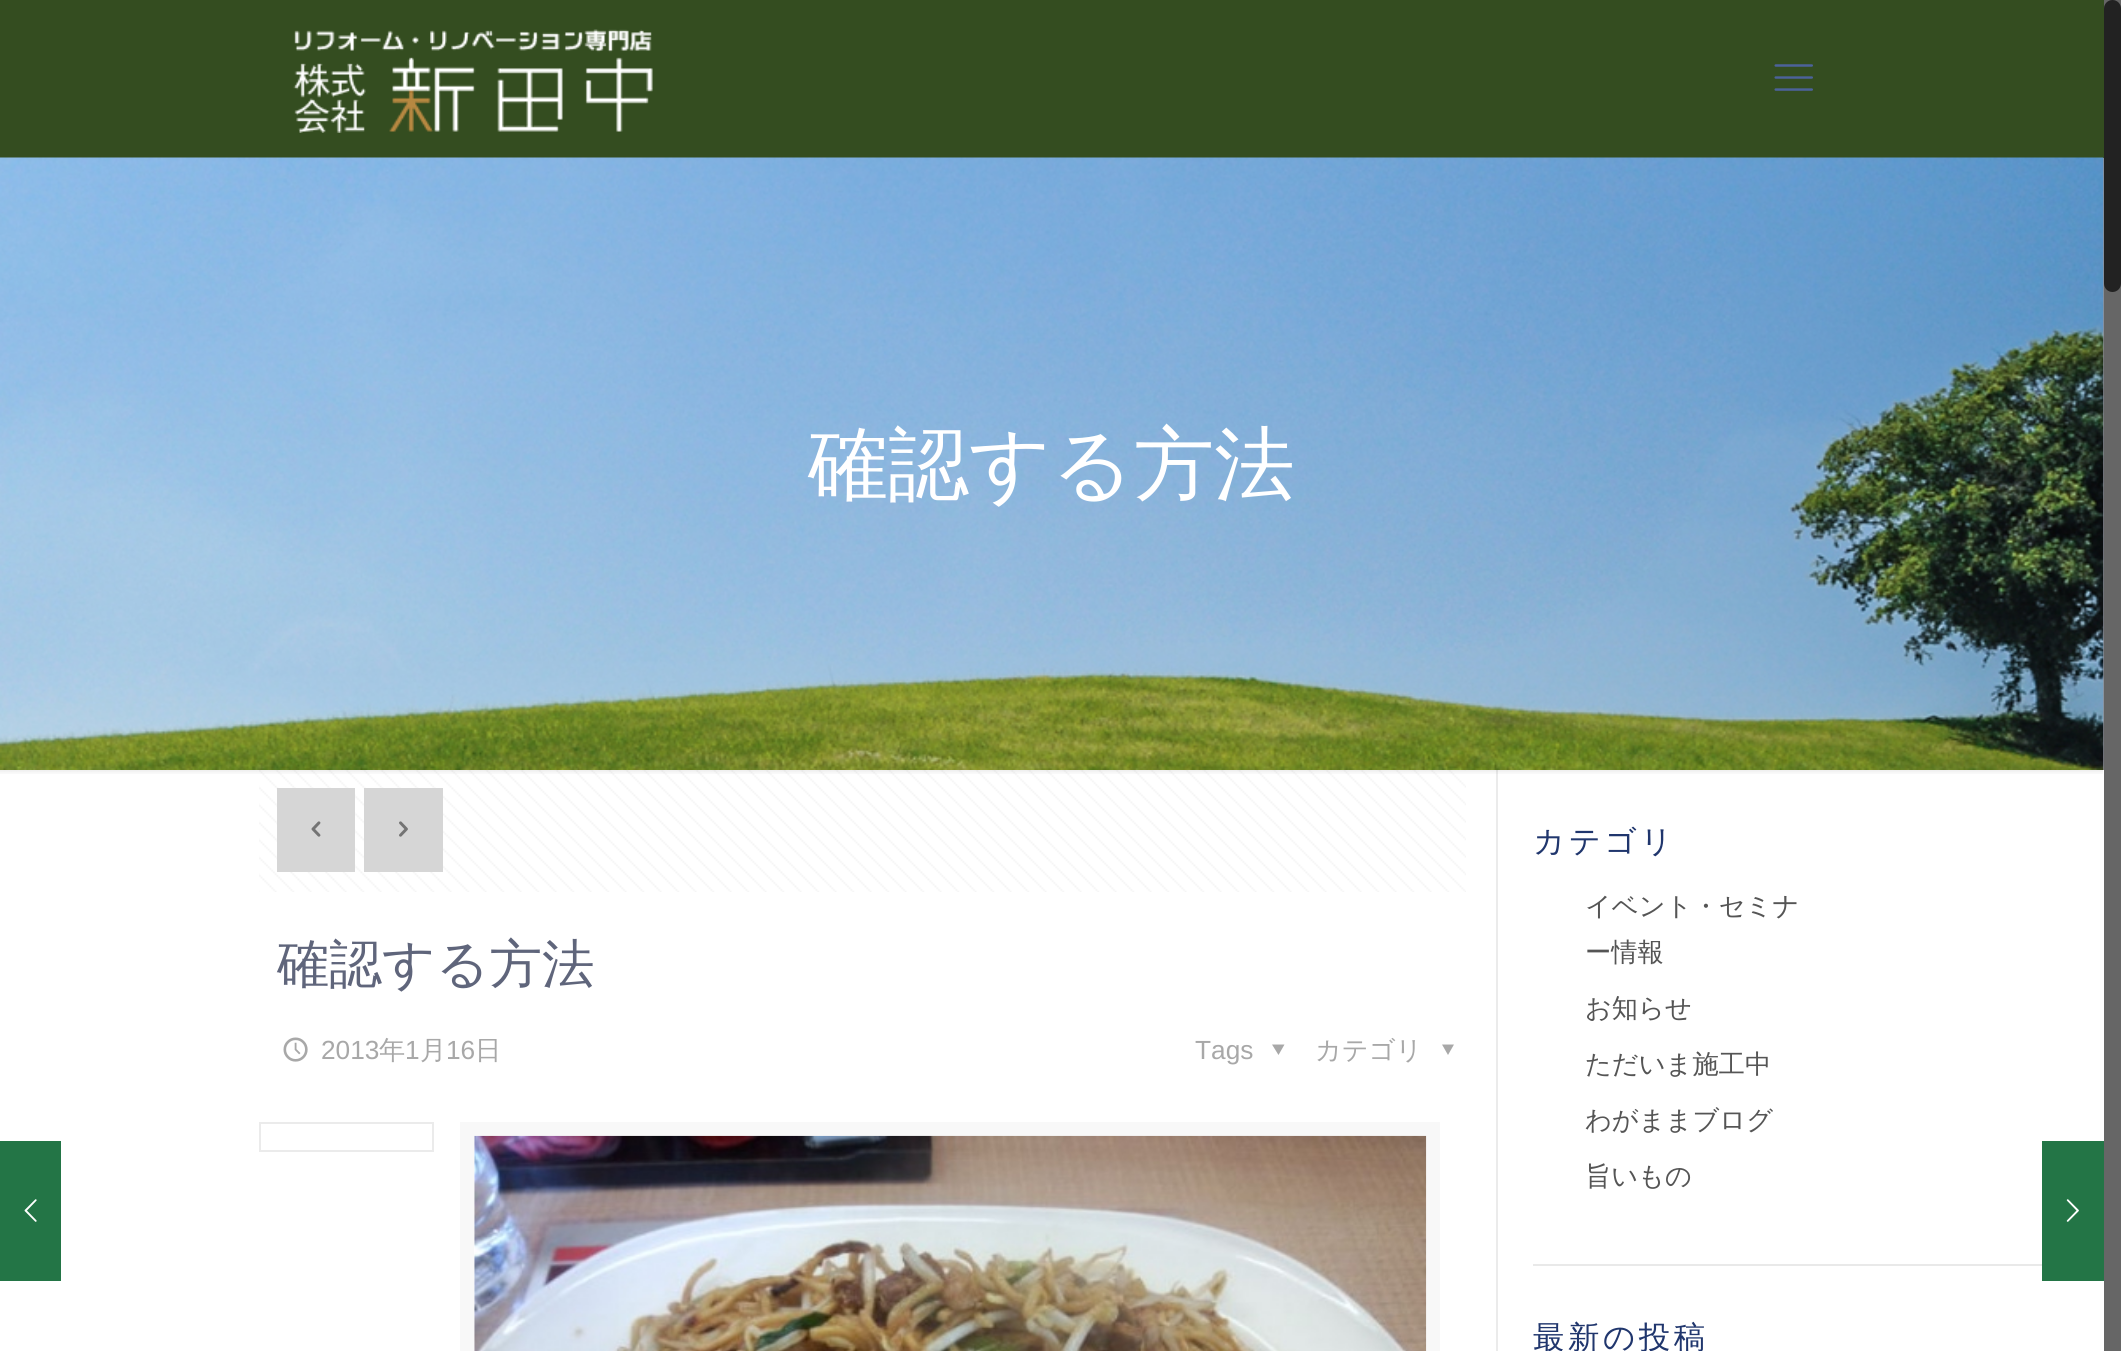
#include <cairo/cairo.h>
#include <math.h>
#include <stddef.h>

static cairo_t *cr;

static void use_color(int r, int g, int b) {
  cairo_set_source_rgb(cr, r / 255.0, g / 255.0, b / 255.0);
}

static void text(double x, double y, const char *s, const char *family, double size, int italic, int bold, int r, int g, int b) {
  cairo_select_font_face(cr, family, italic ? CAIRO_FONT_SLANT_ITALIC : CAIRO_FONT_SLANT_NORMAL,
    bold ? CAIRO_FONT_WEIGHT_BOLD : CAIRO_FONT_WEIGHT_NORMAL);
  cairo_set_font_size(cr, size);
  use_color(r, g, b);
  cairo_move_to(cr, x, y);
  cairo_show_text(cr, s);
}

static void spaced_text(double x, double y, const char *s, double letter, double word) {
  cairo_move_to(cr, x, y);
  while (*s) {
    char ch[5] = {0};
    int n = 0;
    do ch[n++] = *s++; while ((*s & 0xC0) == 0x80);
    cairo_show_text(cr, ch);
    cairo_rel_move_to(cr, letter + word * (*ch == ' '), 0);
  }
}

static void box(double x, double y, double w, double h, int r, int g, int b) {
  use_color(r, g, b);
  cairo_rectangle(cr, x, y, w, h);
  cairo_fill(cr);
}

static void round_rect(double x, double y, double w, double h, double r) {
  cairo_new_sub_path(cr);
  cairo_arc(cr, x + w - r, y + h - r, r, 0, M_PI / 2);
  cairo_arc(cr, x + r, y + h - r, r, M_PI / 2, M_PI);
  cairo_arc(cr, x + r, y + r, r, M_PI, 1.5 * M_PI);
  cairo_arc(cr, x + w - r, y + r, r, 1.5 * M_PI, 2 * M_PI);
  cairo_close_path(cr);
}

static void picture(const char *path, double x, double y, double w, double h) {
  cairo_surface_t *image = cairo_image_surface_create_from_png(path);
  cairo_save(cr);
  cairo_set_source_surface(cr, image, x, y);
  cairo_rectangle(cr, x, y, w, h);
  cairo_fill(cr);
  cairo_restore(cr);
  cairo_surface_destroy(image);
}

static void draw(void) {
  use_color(255, 255, 255);
  cairo_paint(cr);
  box(0, 1141, 61, 140, 35, 117, 70);
  picture("img_01.png", 24, 1199, 13, 23);
  box(0, 0, 2104, 158, 52, 77, 32);
  picture("img_02.png", 293, 29, 360, 104);
  picture("img_03.png", 1774, 64, 39, 27);
  box(2103, 158, 1, 612, 143, 144, 154);
  picture("img_04.png", 0, 157, 2104, 613);
  picture("img_06.png", 259, 770, 1207, 122);
  box(1496, 770, 2, 581, 235, 235, 235);
  picture("img_05.png", 0, 770, 2103, 4);
  box(277, 788, 78, 84, 214, 214, 214);
  picture("img_07.png", 311, 821, 10, 16);
  box(364, 788, 79, 84, 214, 214, 214);
  picture("img_08.png", 399, 821, 9, 16);
  picture("img_09.png", 283, 1037, 25, 25);
  use_color(168, 168, 168);
  cairo_new_path(cr);
  cairo_move_to(cr, 1284.5, 1044.5);
  cairo_line_to(cr, 1278.5, 1055);
  cairo_line_to(cr, 1272, 1044.5);
  cairo_close_path(cr);
  cairo_fill(cr);
  cairo_new_path(cr);
  cairo_move_to(cr, 1454, 1044.5);
  cairo_line_to(cr, 1448, 1055);
  cairo_line_to(cr, 1442, 1044.5);
  cairo_close_path(cr);
  cairo_fill(cr);
  cairo_rectangle(cr, 260, 1123, 173, 28);
  use_color(235, 235, 235);
  cairo_stroke(cr);
  cairo_rectangle(cr, 467, 1129, 966, 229);
  use_color(248, 248, 248);
  cairo_set_line_width(cr, 14);
  cairo_stroke(cr);
  picture("img_10.png", 474, 1135, 953, 216);
  box(1533, 1264, 509, 2, 233, 233, 233);
  box(2042, 1141, 62, 140, 35, 117, 70);
  picture("img_11.png", 2066, 1199, 13, 23);
  box(2104, 0, 17, 1351, 102, 102, 102);
  use_color(34, 34, 34);
  round_rect(2104, 0, 17, 292, 8.5);
  cairo_fill(cr);
  text(808, 492, "確認する方法", "WenQuanYi Zen Hei Medium", 80.5, 0, 0, 255, 255, 255);
  text(277, 982, "確認する方法", "WenQuanYi Zen Hei Medium", 52.5, 0, 0, 95, 101, 123);
  text(321, 1059, "2013", "Liberation Sans", 26.25, 0, 0, 168, 168, 168);
  text(379, 1059, "年", "WenQuanYi Zen Hei Medium", 26.25, 0, 0, 168, 168, 168);
  text(405, 1059, "1", "Liberation Sans", 26.25, 0, 0, 168, 168, 168);
  text(420, 1059, "月", "WenQuanYi Zen Hei Medium", 26.25, 0, 0, 168, 168, 168);
  text(446, 1059, "16", "Liberation Sans", 26.25, 0, 0, 168, 168, 168);
  text(475, 1059, "日", "WenQuanYi Zen Hei Medium", 26.25, 0, 0, 168, 168, 168);
  text(1195, 1059, "Tags", "Liberation Sans", 26.25, 0, 0, 168, 168, 168);
  text(1315, 1059, "カテゴリ", "WenQuanYi Zen Hei Medium", 26.25, 0, 0, 168, 168, 168);
  cairo_set_font_size(cr, 31.5);
  use_color(32, 54, 109);
  spaced_text(1533, 852, "カテゴリ", 3.5, 0);
  text(1585, 915, "イベント・セミナ", "WenQuanYi Zen Hei Medium", 26.25, 0, 0, 85, 85, 85);
  text(1585, 961, "ー情報", "WenQuanYi Zen Hei Medium", 26.25, 0, 0, 85, 85, 85);
  text(1585, 1017, "お知らせ", "WenQuanYi Zen Hei Medium", 26.25, 0, 0, 85, 85, 85);
  text(1585, 1073, "ただいま施工中", "WenQuanYi Zen Hei Medium", 26.25, 0, 0, 85, 85, 85);
  text(1585, 1129, "わがままブログ", "WenQuanYi Zen Hei Medium", 26.25, 0, 0, 85, 85, 85);
  text(1585, 1185, "旨いもの", "WenQuanYi Zen Hei Medium", 26.25, 0, 0, 85, 85, 85);
  cairo_set_font_size(cr, 31.5);
  use_color(32, 54, 109);
  spaced_text(1533, 1348, "最新の投稿", 3.5, 0);
}

int main(void) {
  cairo_surface_t *surface = cairo_image_surface_create(CAIRO_FORMAT_RGB24, 2121, 1351);
  cr = cairo_create(surface);
  cairo_font_options_t *options = cairo_font_options_create();
  cairo_font_options_set_hint_metrics(options, CAIRO_HINT_METRICS_OFF);
  cairo_font_options_set_hint_style(options, CAIRO_HINT_STYLE_NONE);
  cairo_set_font_options(cr, options);
  cairo_set_miter_limit(cr, 4);
  draw();
  cairo_surface_write_to_png(surface, "out.png");
  cairo_font_options_destroy(options);
  cairo_destroy(cr);
  cairo_surface_destroy(surface);
  return 0;
}
